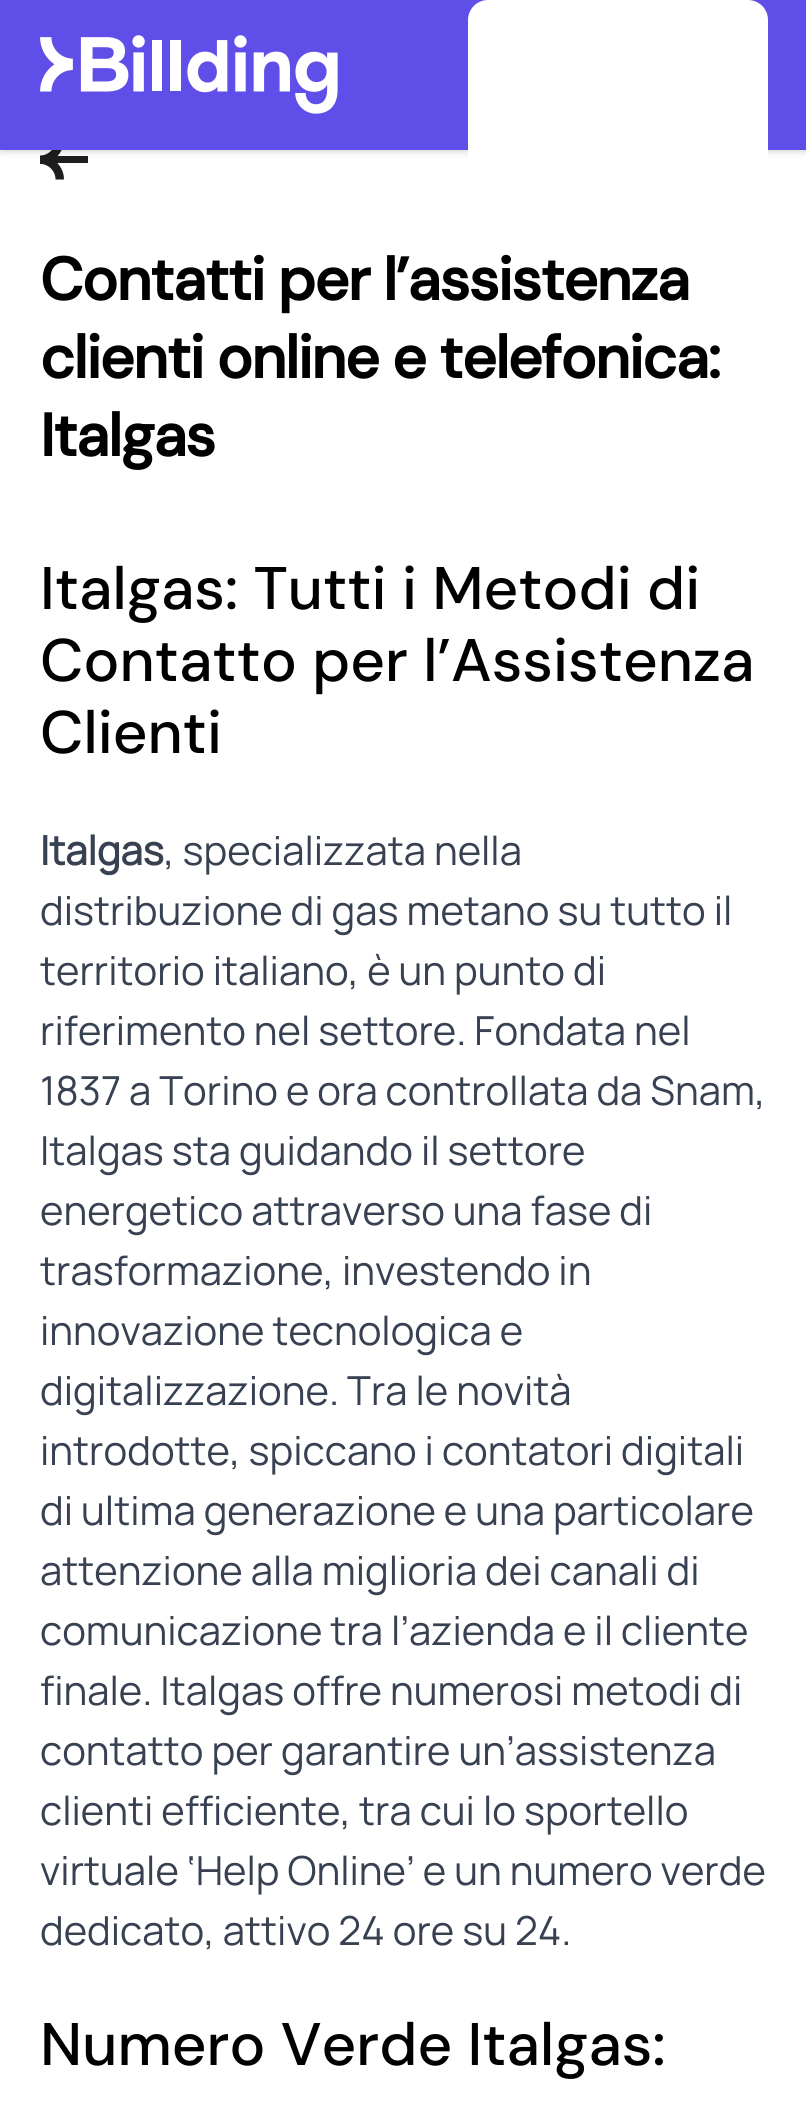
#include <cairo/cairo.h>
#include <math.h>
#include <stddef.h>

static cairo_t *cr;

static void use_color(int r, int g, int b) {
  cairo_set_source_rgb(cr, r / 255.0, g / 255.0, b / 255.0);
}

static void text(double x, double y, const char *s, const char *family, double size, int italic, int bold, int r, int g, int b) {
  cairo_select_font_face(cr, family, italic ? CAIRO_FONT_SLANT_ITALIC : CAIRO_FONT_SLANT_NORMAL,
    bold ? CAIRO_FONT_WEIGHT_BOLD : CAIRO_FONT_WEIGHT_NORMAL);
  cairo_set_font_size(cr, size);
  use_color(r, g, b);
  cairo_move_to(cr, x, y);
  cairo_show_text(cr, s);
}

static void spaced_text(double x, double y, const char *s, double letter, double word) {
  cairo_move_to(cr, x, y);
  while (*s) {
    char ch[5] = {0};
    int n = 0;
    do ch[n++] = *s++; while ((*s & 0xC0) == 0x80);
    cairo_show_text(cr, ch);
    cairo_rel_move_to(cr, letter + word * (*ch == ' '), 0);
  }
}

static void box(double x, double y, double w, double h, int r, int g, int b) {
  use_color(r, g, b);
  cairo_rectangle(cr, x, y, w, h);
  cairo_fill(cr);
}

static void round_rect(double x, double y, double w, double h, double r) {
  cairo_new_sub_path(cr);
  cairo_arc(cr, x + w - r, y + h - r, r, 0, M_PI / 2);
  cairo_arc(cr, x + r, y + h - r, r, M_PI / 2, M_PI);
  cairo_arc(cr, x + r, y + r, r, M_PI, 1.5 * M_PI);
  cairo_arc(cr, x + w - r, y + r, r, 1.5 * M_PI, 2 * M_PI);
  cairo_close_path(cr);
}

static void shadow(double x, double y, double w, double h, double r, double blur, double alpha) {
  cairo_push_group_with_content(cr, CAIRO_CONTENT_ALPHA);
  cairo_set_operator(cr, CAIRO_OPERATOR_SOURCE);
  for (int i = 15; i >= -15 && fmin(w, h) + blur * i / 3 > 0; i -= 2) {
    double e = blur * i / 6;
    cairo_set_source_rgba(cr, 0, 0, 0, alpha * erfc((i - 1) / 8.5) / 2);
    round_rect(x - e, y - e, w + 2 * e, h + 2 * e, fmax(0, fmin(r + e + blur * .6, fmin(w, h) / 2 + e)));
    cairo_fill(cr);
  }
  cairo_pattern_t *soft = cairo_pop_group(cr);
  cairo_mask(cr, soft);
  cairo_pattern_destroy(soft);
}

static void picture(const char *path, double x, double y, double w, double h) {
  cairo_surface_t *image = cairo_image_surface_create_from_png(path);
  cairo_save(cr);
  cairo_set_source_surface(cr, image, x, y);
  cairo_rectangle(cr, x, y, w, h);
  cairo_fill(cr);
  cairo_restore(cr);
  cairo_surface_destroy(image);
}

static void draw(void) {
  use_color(255, 255, 255);
  cairo_paint(cr);
  use_color(30, 30, 30);
  cairo_new_path(cr);
  cairo_move_to(cr, 40.5, 164);
  cairo_curve_to(cr, 48.5, 164, 55.5, 171, 55.5, 179.5);
  cairo_line_to(cr, 64, 179.5);
  cairo_curve_to(cr, 64, 171, 59.5, 164, 53.5, 159.5);
  cairo_curve_to(cr, 59.5, 155.5, 64, 148, 64, 140);
  cairo_line_to(cr, 55.5, 140);
  cairo_curve_to(cr, 55.5, 148.5, 48.5, 155.5, 40, 155.5);
  cairo_line_to(cr, 40, 164);
  cairo_close_path(cr);
  cairo_fill(cr);
  box(48, 156, 40, 7, 30, 30, 30);
  use_color(0, 0, 0);
  shadow(3, 5, 802, 145, 0, 2.5, 0.1);
  shadow(0, 3, 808, 150, 0, 4, 0.1);
  box(0, 0, 806, 150, 95, 79, 232);
  picture("img_01.png", 40, 35, 298, 79);
  use_color(255, 255, 255);
  round_rect(468, 0, 300, 195, 20);
  cairo_fill(cr);
  cairo_select_font_face(cr, "DM Sans", CAIRO_FONT_SLANT_NORMAL, CAIRO_FONT_WEIGHT_BOLD);
  cairo_set_font_size(cr, 60);
  use_color(0, 0, 0);
  spaced_text(40, 300, "Contatti per l’assistenza", -1.5, 0);
  spaced_text(40, 378, "clienti online e telefonica:", -1.5, 0);
  spaced_text(40, 456, "Italgas", -1.5, 0);
  text(40, 609, "Italgas: Tutti i Metodi di", "DM Sans Medium", 60, 0, 0, 0, 0, 0);
  text(40, 681, "Contatto per l’Assistenza", "DM Sans Medium", 60, 0, 0, 0, 0, 0);
  text(40, 753, "Clienti", "DM Sans Medium", 60, 0, 0, 0, 0, 0);
  text(40, 865, "Italgas", "Manrope", 40, 0, 1, 55, 65, 81);
  text(164, 865, ", specializzata nella", "Manrope", 40, 0, 0, 55, 65, 81);
  text(40, 925, "distribuzione di gas metano su tutto il", "Manrope", 40, 0, 0, 55, 65, 81);
  text(40, 985, "territorio italiano, è un punto di", "Manrope", 40, 0, 0, 55, 65, 81);
  text(40, 1045, "riferimento nel settore. Fondata nel", "Manrope", 40, 0, 0, 55, 65, 81);
  text(40, 1105, "1837 a Torino e ora controllata da Snam,", "Manrope", 40, 0, 0, 55, 65, 81);
  text(40, 1165, "Italgas sta guidando il settore", "Manrope", 40, 0, 0, 55, 65, 81);
  text(40, 1225, "energetico attraverso una fase di", "Manrope", 40, 0, 0, 55, 65, 81);
  text(40, 1285, "trasformazione, investendo in", "Manrope", 40, 0, 0, 55, 65, 81);
  text(40, 1345, "innovazione tecnologica e", "Manrope", 40, 0, 0, 55, 65, 81);
  text(40, 1405, "digitalizzazione. Tra le novità", "Manrope", 40, 0, 0, 55, 65, 81);
  text(40, 1465, "introdotte, spiccano i contatori digitali", "Manrope", 40, 0, 0, 55, 65, 81);
  text(40, 1525, "di ultima generazione e una particolare", "Manrope", 40, 0, 0, 55, 65, 81);
  text(40, 1585, "attenzione alla miglioria dei canali di", "Manrope", 40, 0, 0, 55, 65, 81);
  text(40, 1645, "comunicazione tra l’azienda e il cliente", "Manrope", 40, 0, 0, 55, 65, 81);
  text(40, 1705, "finale. Italgas offre numerosi metodi di", "Manrope", 40, 0, 0, 55, 65, 81);
  text(40, 1765, "contatto per garantire un’assistenza", "Manrope", 40, 0, 0, 55, 65, 81);
  text(40, 1825, "clienti efficiente, tra cui lo sportello", "Manrope", 40, 0, 0, 55, 65, 81);
  text(40, 1885, "virtuale ‘Help Online’ e un numero verde", "Manrope", 40, 0, 0, 55, 65, 81);
  text(40, 1945, "dedicato, attivo 24 ore su 24.", "Manrope", 40, 0, 0, 55, 65, 81);
  text(40, 2065, "Numero Verde Italgas:", "DM Sans Medium", 60, 0, 0, 0, 0, 0);
}

int main(void) {
  cairo_surface_t *surface = cairo_image_surface_create(CAIRO_FORMAT_RGB24, 806, 2101);
  cr = cairo_create(surface);
  cairo_font_options_t *options = cairo_font_options_create();
  cairo_font_options_set_hint_metrics(options, CAIRO_HINT_METRICS_OFF);
  cairo_font_options_set_hint_style(options, CAIRO_HINT_STYLE_NONE);
  cairo_set_font_options(cr, options);
  cairo_set_miter_limit(cr, 4);
  draw();
  cairo_surface_write_to_png(surface, "out.png");
  cairo_font_options_destroy(options);
  cairo_destroy(cr);
  cairo_surface_destroy(surface);
  return 0;
}
